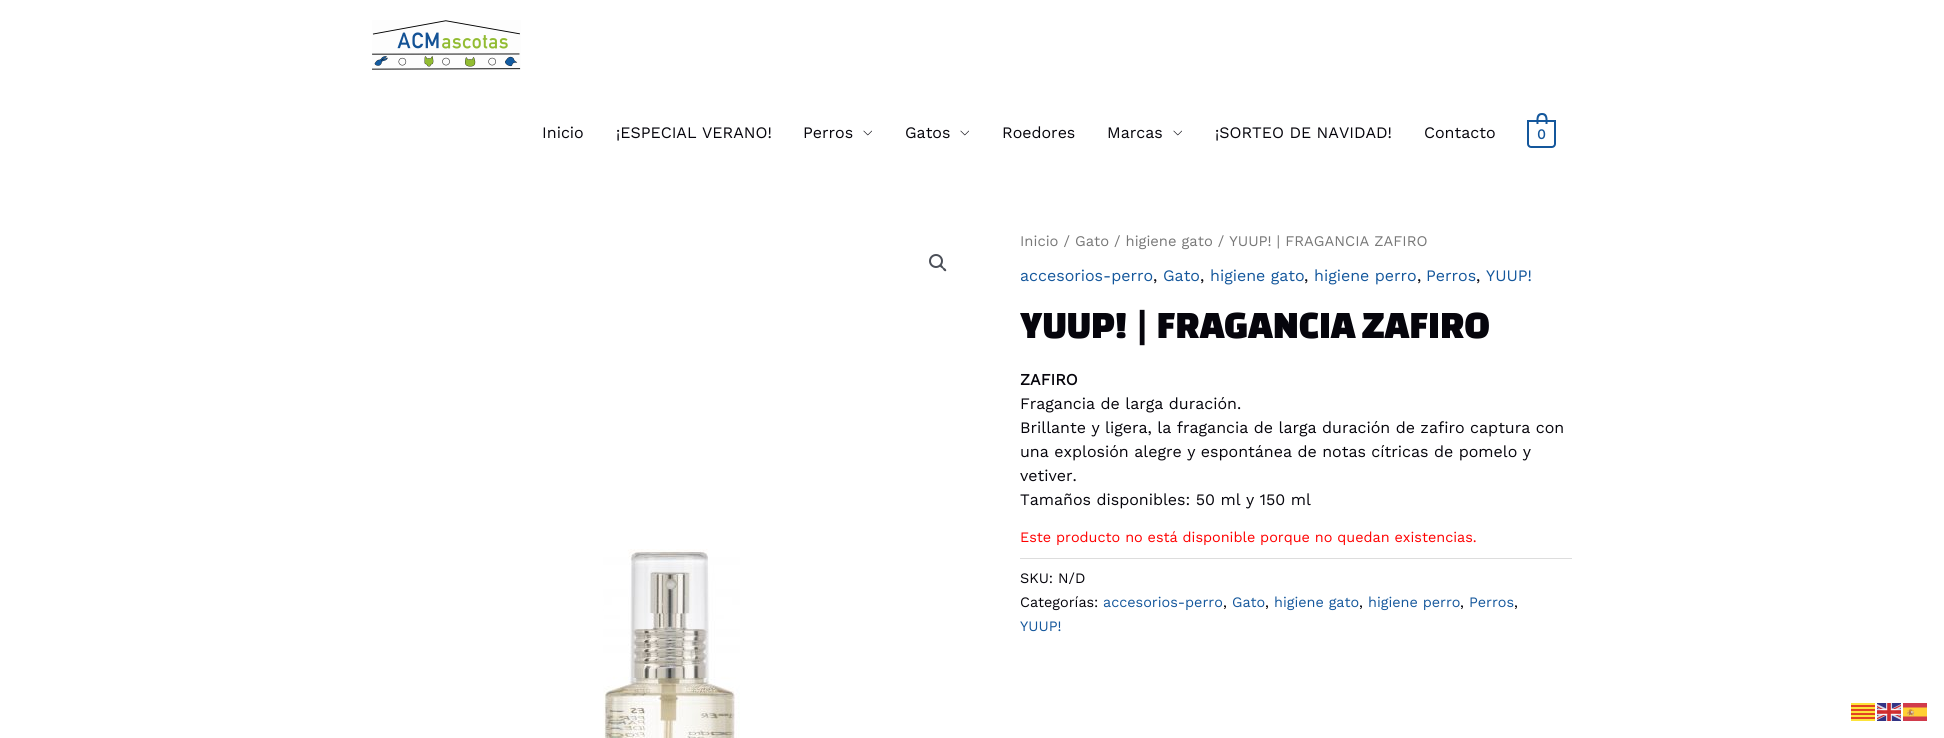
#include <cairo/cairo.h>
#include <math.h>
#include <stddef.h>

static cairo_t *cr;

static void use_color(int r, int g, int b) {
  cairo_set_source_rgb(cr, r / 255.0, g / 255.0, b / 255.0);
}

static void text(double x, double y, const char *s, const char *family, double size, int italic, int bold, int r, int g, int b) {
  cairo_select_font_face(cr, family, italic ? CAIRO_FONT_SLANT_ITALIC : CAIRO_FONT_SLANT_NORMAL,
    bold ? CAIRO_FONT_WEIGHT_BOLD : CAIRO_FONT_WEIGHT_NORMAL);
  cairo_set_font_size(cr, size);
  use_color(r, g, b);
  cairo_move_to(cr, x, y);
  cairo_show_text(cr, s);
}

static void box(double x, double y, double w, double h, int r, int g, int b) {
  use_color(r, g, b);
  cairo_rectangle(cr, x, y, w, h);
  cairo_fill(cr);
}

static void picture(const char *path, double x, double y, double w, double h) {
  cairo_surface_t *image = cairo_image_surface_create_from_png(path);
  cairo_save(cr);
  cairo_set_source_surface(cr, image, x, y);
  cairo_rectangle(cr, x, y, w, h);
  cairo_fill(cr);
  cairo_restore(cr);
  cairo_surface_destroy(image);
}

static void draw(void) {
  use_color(255, 255, 255);
  cairo_paint(cr);
  picture("img_01.png", 372, 20, 149, 50);
  picture("img_02.png", 863, 130, 9, 6);
  picture("img_02.png", 960, 130, 9, 6);
  picture("img_02.png", 1173, 130, 9, 6);
  cairo_new_path(cr);
  cairo_move_to(cr, 1528, 121);
  cairo_line_to(cr, 1555, 121);
  cairo_line_to(cr, 1555, 144);
  cairo_curve_to(cr, 1555, 145.5, 1553.5, 147, 1552, 147);
  cairo_line_to(cr, 1531, 147);
  cairo_curve_to(cr, 1529.5, 147, 1528, 145.5, 1528, 144);
  cairo_close_path(cr);
  use_color(20, 87, 156);
  cairo_stroke(cr);
  cairo_set_fill_rule(cr, CAIRO_FILL_RULE_EVEN_ODD);
  cairo_new_path(cr);
  cairo_move_to(cr, 1542, 113);
  cairo_curve_to(cr, 1548.5, 113, 1547.5, 119.5, 1547.5, 124);
  cairo_line_to(cr, 1536.5, 124);
  cairo_curve_to(cr, 1536.5, 119.5, 1535.5, 113, 1542, 113);
  cairo_close_path(cr);
  cairo_move_to(cr, 1542, 115);
  cairo_curve_to(cr, 1546.5, 115, 1545.5, 121, 1545.5, 124);
  cairo_line_to(cr, 1538.5, 124);
  cairo_curve_to(cr, 1538.5, 121, 1537.5, 115, 1542, 115);
  cairo_close_path(cr);
  cairo_fill(cr);
  cairo_arc(cr, 936, 261, 6, 0, 2 * M_PI);
  use_color(75, 79, 88);
  cairo_stroke(cr);
  cairo_set_fill_rule(cr, CAIRO_FILL_RULE_WINDING);
  cairo_new_path(cr);
  cairo_move_to(cr, 940, 265);
  cairo_curve_to(cr, 941.5, 264, 943, 266.5, 943.5, 267.5);
  cairo_curve_to(cr, 944.5, 268, 947, 269.5, 946, 271);
  cairo_curve_to(cr, 944.5, 272, 943, 269.5, 942.5, 268.5);
  cairo_curve_to(cr, 941.5, 268, 939, 266.5, 940, 265);
  cairo_close_path(cr);
  cairo_fill(cr);
  picture("img_03.png", 603, 549, 137, 189);
  box(1020, 558, 552, 1, 221, 221, 221);
  picture("img_04.png", 1851, 703, 24, 18);
  picture("img_05.png", 1877, 703, 24, 18);
  picture("img_06.png", 1903, 703, 24, 18);
  text(542, 138, "Inicio", "Work Sans", 16, 0, 0, 6, 5, 12);
  text(616, 138, "¡ESPECIAL VERANO!", "Work Sans", 16, 0, 0, 6, 5, 12);
  text(803, 138, "Perros", "Work Sans", 16, 0, 0, 6, 5, 12);
  text(905, 138, "Gatos", "Work Sans", 16, 0, 0, 6, 5, 12);
  text(1002, 138, "Roedores", "Work Sans", 16, 0, 0, 6, 5, 12);
  text(1107, 138, "Marcas", "Work Sans", 16, 0, 0, 6, 5, 12);
  text(1215, 138, "¡SORTEO DE NAVIDAD!", "Work Sans", 16, 0, 0, 6, 5, 12);
  text(1424, 138, "Contacto", "Work Sans", 16, 0, 0, 6, 5, 12);
  text(1537, 139, "0", "Work Sans", 14, 0, 1, 20, 87, 156);
  text(1020, 246, "Inicio / Gato / higiene gato / YUUP! | FRAGANCIA ZAFIRO", "Work Sans", 14.75, 0, 0, 119, 119, 119);
  text(1020, 281, "accesorios-perro", "Work Sans", 16, 0, 0, 20, 87, 156);
  text(1153, 281, ",", "Work Sans", 16, 0, 0, 6, 5, 12);
  text(1163, 281, "Gato", "Work Sans", 16, 0, 0, 20, 87, 156);
  text(1200, 281, ",", "Work Sans", 16, 0, 0, 6, 5, 12);
  text(1210, 281, "higiene gato", "Work Sans", 16, 0, 0, 20, 87, 156);
  text(1304, 281, ",", "Work Sans", 16, 0, 0, 6, 5, 12);
  text(1314, 281, "higiene perro", "Work Sans", 16, 0, 0, 20, 87, 156);
  text(1417, 281, ",", "Work Sans", 16, 0, 0, 6, 5, 12);
  text(1426, 281, "Perros", "Work Sans", 16, 0, 0, 20, 87, 156);
  text(1476, 281, ",", "Work Sans", 16, 0, 0, 6, 5, 12);
  text(1486, 281, "YUUP!", "Work Sans", 16, 0, 0, 20, 87, 156);
  text(1020, 338, "YUUP! | FRAGANCIA ZAFIRO", "Changa One", 40, 0, 0, 6, 5, 12);
  text(1020, 385, "ZAFIRO", "Work Sans", 16, 0, 1, 6, 5, 12);
  text(1020, 409, "Fragancia de larga duración.", "Work Sans", 16, 0, 0, 6, 5, 12);
  text(1020, 433, "Brillante y ligera, la fragancia de larga duración de zafiro captura con", "Work Sans", 16, 0, 0, 6, 5, 12);
  text(1020, 457, "una explosión alegre y espontánea de notas cítricas de pomelo y", "Work Sans", 16, 0, 0, 6, 5, 12);
  text(1020, 481, "vetiver.", "Work Sans", 16, 0, 0, 6, 5, 12);
  text(1020, 505, "Tamaños disponibles: 50 ml y 150 ml", "Work Sans", 16, 0, 0, 6, 5, 12);
  text(1020, 542, "Este producto no está disponible porque no quedan existencias.", "Work Sans", 14.4, 0, 0, 255, 0, 0);
  text(1020, 583, "SKU: N/D", "Work Sans", 14.4, 0, 0, 6, 5, 12);
  text(1020, 607, "Categorías:", "Work Sans", 14.4, 0, 0, 6, 5, 12);
  text(1103, 607, "accesorios-perro", "Work Sans", 14.4, 0, 0, 20, 87, 156);
  text(1223, 607, ",", "Work Sans", 14.4, 0, 0, 6, 5, 12);
  text(1232, 607, "Gato", "Work Sans", 14.4, 0, 0, 20, 87, 156);
  text(1265, 607, ",", "Work Sans", 14.4, 0, 0, 6, 5, 12);
  text(1274, 607, "higiene gato", "Work Sans", 14.4, 0, 0, 20, 87, 156);
  text(1359, 607, ",", "Work Sans", 14.4, 0, 0, 6, 5, 12);
  text(1368, 607, "higiene perro", "Work Sans", 14.4, 0, 0, 20, 87, 156);
  text(1460, 607, ",", "Work Sans", 14.4, 0, 0, 6, 5, 12);
  text(1469, 607, "Perros", "Work Sans", 14.4, 0, 0, 20, 87, 156);
  text(1514, 607, ",", "Work Sans", 14.4, 0, 0, 6, 5, 12);
  text(1020, 631, "YUUP!", "Work Sans", 14.4, 0, 0, 20, 87, 156);
}

int main(void) {
  cairo_surface_t *surface = cairo_image_surface_create(CAIRO_FORMAT_RGB24, 1944, 738);
  cr = cairo_create(surface);
  cairo_font_options_t *options = cairo_font_options_create();
  cairo_font_options_set_hint_metrics(options, CAIRO_HINT_METRICS_OFF);
  cairo_font_options_set_hint_style(options, CAIRO_HINT_STYLE_NONE);
  cairo_set_font_options(cr, options);
  cairo_set_miter_limit(cr, 4);
  draw();
  cairo_surface_write_to_png(surface, "out.png");
  cairo_font_options_destroy(options);
  cairo_destroy(cr);
  cairo_surface_destroy(surface);
  return 0;
}
